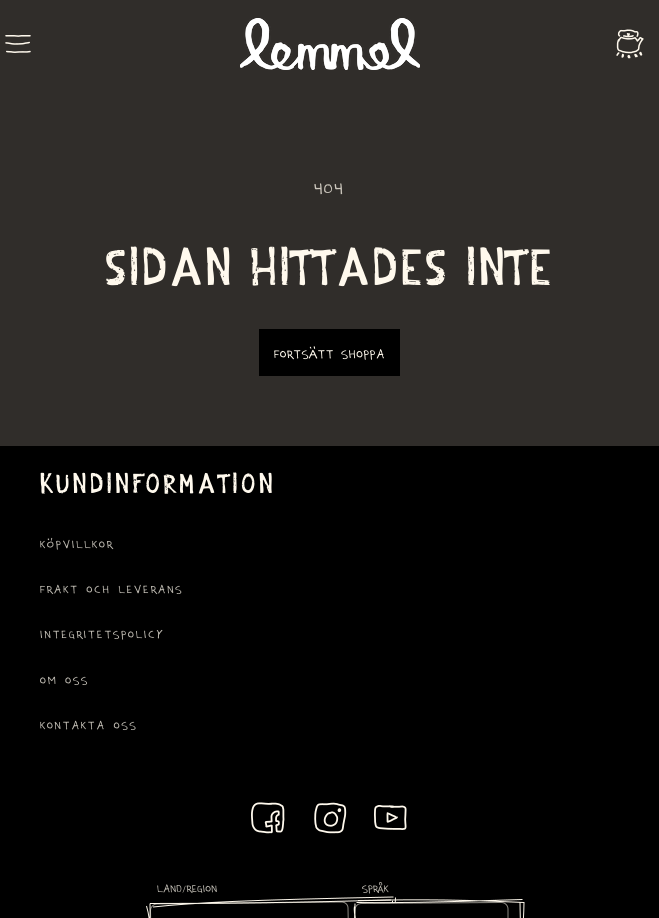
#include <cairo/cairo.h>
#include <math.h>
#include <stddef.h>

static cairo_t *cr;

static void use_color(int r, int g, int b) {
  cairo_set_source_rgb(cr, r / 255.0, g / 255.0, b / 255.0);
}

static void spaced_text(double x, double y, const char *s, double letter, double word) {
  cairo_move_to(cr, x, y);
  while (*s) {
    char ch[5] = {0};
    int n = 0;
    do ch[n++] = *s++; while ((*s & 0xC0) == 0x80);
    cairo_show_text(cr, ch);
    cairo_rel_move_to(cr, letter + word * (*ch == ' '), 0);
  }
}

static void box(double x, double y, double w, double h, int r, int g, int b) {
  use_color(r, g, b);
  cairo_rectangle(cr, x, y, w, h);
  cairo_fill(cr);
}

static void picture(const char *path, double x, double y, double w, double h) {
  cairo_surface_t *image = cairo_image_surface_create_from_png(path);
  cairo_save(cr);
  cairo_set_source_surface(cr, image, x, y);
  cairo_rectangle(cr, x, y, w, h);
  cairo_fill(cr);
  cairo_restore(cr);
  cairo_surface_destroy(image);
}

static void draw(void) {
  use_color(48, 45, 42);
  cairo_paint(cr);
  picture("img_01.png", 240, 18, 180, 52);
  picture("img_02.png", 5, 35, 26, 18);
  picture("img_03.png", 240, 18, 180, 52);
  picture("img_04.png", 616, 29, 28, 30);
  box(259, 329, 141, 47, 0, 0, 0);
  box(0, 446, 659, 472, 0, 0, 0);
  picture("img_05.png", 251, 802, 34, 32);
  picture("img_06.png", 314, 802, 33, 32);
  picture("img_07.png", 374, 805, 33, 25);
  cairo_new_path(cr);
  cairo_move_to(cr, 153, 907);
  cairo_curve_to(cr, 195.5, 902.5, 245.5, 900, 393.5, 897);
  cairo_move_to(cr, 150, 903.5);
  cairo_curve_to(cr, 227, 903.5, 301.5, 902.5, 391, 900);
  cairo_move_to(cr, 395.5, 897.5);
  cairo_curve_to(cr, 395, 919.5, 390.5, 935.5, 391.5, 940.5);
  cairo_move_to(cr, 392.5, 900.5);
  cairo_line_to(cr, 392.5, 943.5);
  cairo_move_to(cr, 389.5, 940);
  cairo_curve_to(cr, 322, 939, 245, 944, 151, 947);
  cairo_move_to(cr, 394, 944);
  cairo_curve_to(cr, 329, 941.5, 266, 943, 150, 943.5);
  cairo_move_to(cr, 146.5, 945.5);
  cairo_curve_to(cr, 150, 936.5, 151.5, 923, 146.5, 906);
  cairo_move_to(cr, 152, 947);
  cairo_curve_to(cr, 148.5, 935, 150.5, 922.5, 150, 903.5);
  use_color(255, 249, 237);
  cairo_set_line_width(cr, 1);
  cairo_stroke(cr);
  cairo_new_path(cr);
  cairo_move_to(cr, 157, 904);
  cairo_line_to(cr, 341.5, 902);
  cairo_curve_to(cr, 345, 902, 348, 904.5, 348, 908);
  cairo_line_to(cr, 348.5, 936);
  cairo_curve_to(cr, 348.5, 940, 345.5, 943, 342, 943);
  cairo_line_to(cr, 157.5, 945);
  cairo_curve_to(cr, 154, 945, 151, 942, 151, 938.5);
  cairo_line_to(cr, 150.5, 910.5);
  cairo_curve_to(cr, 150.5, 907, 153.5, 904, 157, 904);
  cairo_close_path(cr);
  cairo_set_source_rgba(cr, 1, 0.976, 0.929, 0.55);
  cairo_stroke(cr);
  use_color(0, 0, 0);
  cairo_new_path(cr);
  cairo_move_to(cr, 362, 903);
  cairo_line_to(cr, 502, 902);
  cairo_curve_to(cr, 505, 902, 509, 905, 509, 909);
  cairo_line_to(cr, 509, 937);
  cairo_curve_to(cr, 509, 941, 506, 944, 502, 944);
  cairo_line_to(cr, 362, 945);
  cairo_curve_to(cr, 358, 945, 355, 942, 355, 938);
  cairo_line_to(cr, 355, 910);
  cairo_curve_to(cr, 355, 906, 358, 903, 362, 903);
  cairo_close_path(cr);
  cairo_fill(cr);
  cairo_new_path(cr);
  cairo_move_to(cr, 358, 900.5);
  cairo_curve_to(cr, 394.5, 900, 438.5, 898.5, 524, 902.5);
  cairo_move_to(cr, 356.5, 902.5);
  cairo_curve_to(cr, 391, 903, 431.5, 902.5, 522.5, 899.5);
  cairo_move_to(cr, 520, 902.5);
  cairo_curve_to(cr, 520, 913.5, 521, 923.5, 519.5, 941);
  cairo_move_to(cr, 524, 902);
  cairo_curve_to(cr, 524, 914, 522.5, 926, 523, 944.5);
  cairo_move_to(cr, 526.5, 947);
  cairo_curve_to(cr, 487, 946.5, 446.5, 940.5, 352.5, 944.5);
  cairo_move_to(cr, 523.5, 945);
  cairo_curve_to(cr, 464, 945.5, 404, 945.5, 357, 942.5);
  cairo_move_to(cr, 356, 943);
  cairo_curve_to(cr, 358.5, 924.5, 353, 914, 354.5, 906.5);
  cairo_move_to(cr, 354, 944.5);
  cairo_line_to(cr, 355, 903.5);
  use_color(255, 249, 237);
  cairo_stroke(cr);
  cairo_new_path(cr);
  cairo_move_to(cr, 361.5, 903.5);
  cairo_line_to(cr, 501.5, 902.5);
  cairo_curve_to(cr, 505, 902.5, 508, 905.5, 508, 909);
  cairo_line_to(cr, 508, 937);
  cairo_curve_to(cr, 508, 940.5, 505.5, 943.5, 501.5, 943.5);
  cairo_line_to(cr, 362, 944.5);
  cairo_curve_to(cr, 358, 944.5, 355, 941.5, 355, 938);
  cairo_line_to(cr, 355, 910);
  cairo_curve_to(cr, 355, 906, 358, 903.5, 361.5, 903.5);
  cairo_close_path(cr);
  cairo_set_source_rgba(cr, 1, 0.976, 0.929, 0.55);
  cairo_stroke(cr);
  cairo_select_font_face(cr, "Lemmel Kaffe", CAIRO_FONT_SLANT_NORMAL, CAIRO_FONT_WEIGHT_NORMAL);
  cairo_set_font_size(cr, 18);
  use_color(203, 198, 188);
  spaced_text(314, 193, "404", 2, 0);
  cairo_select_font_face(cr, "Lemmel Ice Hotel", CAIRO_FONT_SLANT_NORMAL, CAIRO_FONT_WEIGHT_NORMAL);
  cairo_set_font_size(cr, 60);
  use_color(255, 249, 237);
  spaced_text(105, 285, "SIDAN HITTADES INTE", 4, 0);
  cairo_select_font_face(cr, "Lemmel Kaffe", CAIRO_FONT_SLANT_NORMAL, CAIRO_FONT_WEIGHT_NORMAL);
  cairo_set_font_size(cr, 15);
  spaced_text(274, 358, "FORTSÄTT SHOPPA", 1, 0);
  cairo_select_font_face(cr, "Lemmel Ice Hotel", CAIRO_FONT_SLANT_NORMAL, CAIRO_FONT_WEIGHT_NORMAL);
  cairo_set_font_size(cr, 32);
  spaced_text(40, 493, "KUNDINFORMATION", 4, 0);
  cairo_select_font_face(cr, "Lemmel Kaffe", CAIRO_FONT_SLANT_NORMAL, CAIRO_FONT_WEIGHT_NORMAL);
  cairo_set_font_size(cr, 14);
  use_color(191, 187, 178);
  spaced_text(40, 548, "KÖPVILLKOR", 2, 0);
  spaced_text(40, 593, "FRAKT OCH LEVERANS", 2, 0);
  spaced_text(40, 638, "INTEGRITETSPOLICY", 2, 0);
  spaced_text(40, 684, "OM OSS", 2, 0);
  spaced_text(40, 729, "KONTAKTA OSS", 2, 0);
  cairo_set_font_size(cr, 13);
  spaced_text(157, 892, "LAND/REGION", 0.4, 0);
  spaced_text(362, 892, "SPRÅK", 0.4, 0);
}

int main(void) {
  cairo_surface_t *surface = cairo_image_surface_create(CAIRO_FORMAT_RGB24, 659, 918);
  cr = cairo_create(surface);
  cairo_font_options_t *options = cairo_font_options_create();
  cairo_font_options_set_hint_metrics(options, CAIRO_HINT_METRICS_OFF);
  cairo_font_options_set_hint_style(options, CAIRO_HINT_STYLE_NONE);
  cairo_set_font_options(cr, options);
  cairo_set_miter_limit(cr, 4);
  draw();
  cairo_surface_write_to_png(surface, "out.png");
  cairo_font_options_destroy(options);
  cairo_destroy(cr);
  cairo_surface_destroy(surface);
  return 0;
}
